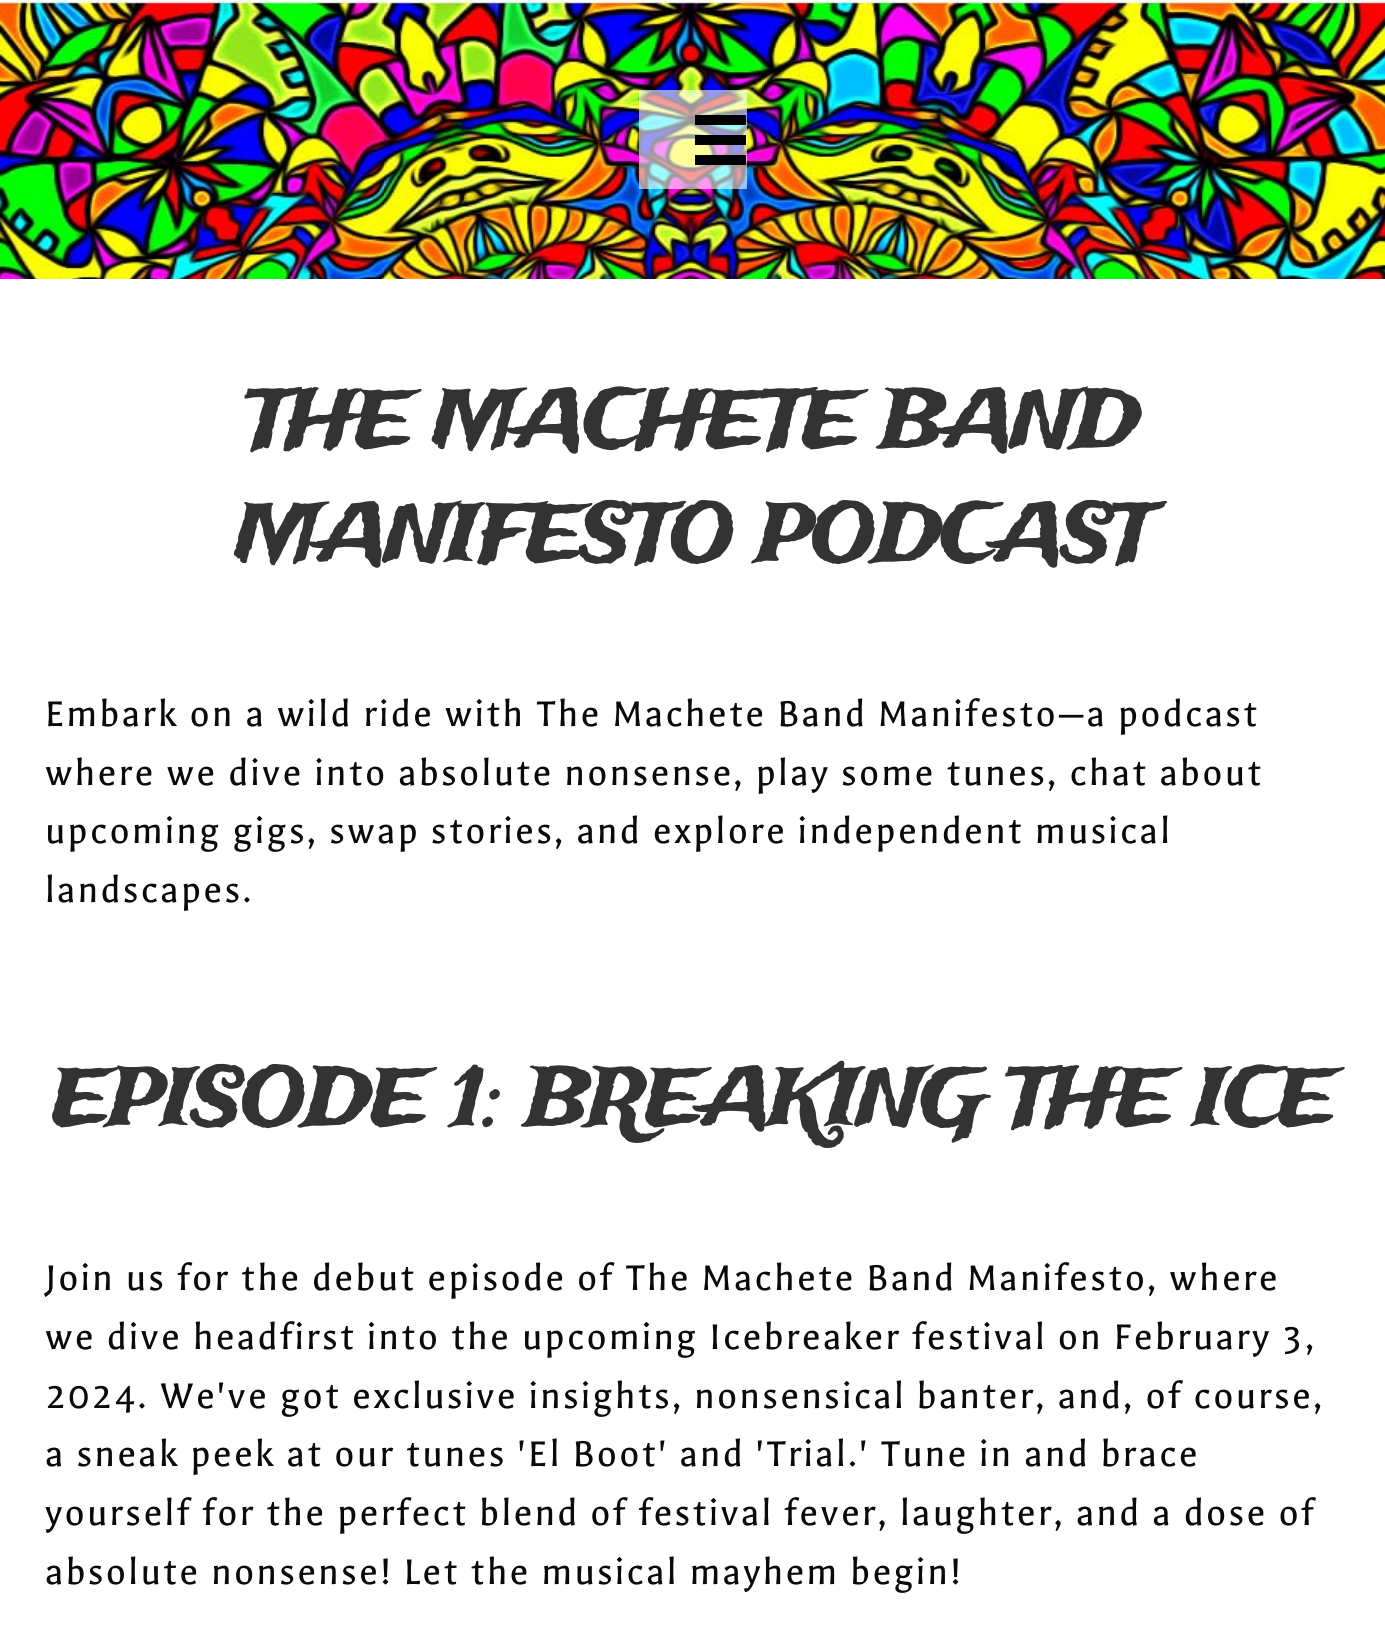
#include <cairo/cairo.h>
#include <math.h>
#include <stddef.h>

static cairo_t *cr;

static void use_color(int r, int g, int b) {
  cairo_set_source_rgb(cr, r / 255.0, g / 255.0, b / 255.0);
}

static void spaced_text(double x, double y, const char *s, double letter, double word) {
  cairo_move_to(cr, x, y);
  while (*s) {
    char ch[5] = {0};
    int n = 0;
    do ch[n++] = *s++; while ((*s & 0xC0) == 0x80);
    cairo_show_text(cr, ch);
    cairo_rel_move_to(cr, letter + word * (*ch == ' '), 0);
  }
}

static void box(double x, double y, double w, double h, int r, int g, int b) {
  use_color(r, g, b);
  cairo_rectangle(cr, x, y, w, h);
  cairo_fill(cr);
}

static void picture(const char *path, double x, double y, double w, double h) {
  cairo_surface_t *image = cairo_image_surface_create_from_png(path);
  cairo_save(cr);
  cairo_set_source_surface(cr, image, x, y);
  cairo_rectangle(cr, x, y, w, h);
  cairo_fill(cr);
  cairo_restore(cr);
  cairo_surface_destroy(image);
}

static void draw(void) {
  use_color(255, 255, 255);
  cairo_paint(cr);
  picture("img_01.png", 0, 0, 1385, 279);
  cairo_set_source_rgba(cr, 1, 1, 1, 0.59);
  cairo_rectangle(cr, 639, 90, 108, 99);
  cairo_fill(cr);
  box(695, 115, 51, 10, 0, 0, 0);
  box(695, 135, 51, 10, 0, 0, 0);
  box(695, 155, 51, 10, 0, 0, 0);
  cairo_select_font_face(cr, "Trade Winds", CAIRO_FONT_SLANT_NORMAL, CAIRO_FONT_WEIGHT_NORMAL);
  cairo_set_font_size(cr, 81);
  use_color(51, 51, 51);
  spaced_text(246, 447, "THE MACHETE BAND", -2.25, 0);
  spaced_text(236, 561, "MANIFESTO PODCAST", -2.25, 0);
  cairo_select_font_face(cr, "Galdeano", CAIRO_FONT_SLANT_NORMAL, CAIRO_FONT_WEIGHT_NORMAL);
  cairo_set_font_size(cr, 40.5);
  use_color(10, 10, 10);
  spaced_text(45, 726, "Embark on a wild ride with The Machete Band Manifesto—a podcast", 2.25, 0);
  spaced_text(45, 785, "where we dive into absolute nonsense, play some tunes, chat about", 2.25, 0);
  spaced_text(45, 843, "upcoming gigs, swap stories, and explore independent musical", 2.25, 0);
  spaced_text(45, 902, "landscapes.", 2.25, 0);
  cairo_select_font_face(cr, "Trade Winds", CAIRO_FONT_SLANT_NORMAL, CAIRO_FONT_WEIGHT_NORMAL);
  cairo_set_font_size(cr, 81);
  use_color(51, 51, 51);
  spaced_text(52, 1125, "EPISODE 1: BREAKING THE ICE", -2.25, 0);
  cairo_select_font_face(cr, "Galdeano", CAIRO_FONT_SLANT_NORMAL, CAIRO_FONT_WEIGHT_NORMAL);
  cairo_set_font_size(cr, 40.5);
  use_color(10, 10, 10);
  spaced_text(45, 1290, "Join us for the debut episode of The Machete Band Manifesto, where", 2.25, 0);
  spaced_text(45, 1349, "we dive headfirst into the upcoming Icebreaker festival on February 3,", 2.25, 0);
  spaced_text(45, 1408, "2024. We've got exclusive insights, nonsensical banter, and, of course,", 2.25, 0);
  spaced_text(45, 1466, "a sneak peek at our tunes 'El Boot' and 'Trial.' Tune in and brace", 2.25, 0);
  spaced_text(45, 1525, "yourself for the perfect blend of festival fever, laughter, and a dose of", 2.25, 0);
  spaced_text(45, 1584, "absolute nonsense! Let the musical mayhem begin!", 2.25, 0);
}

int main(void) {
  cairo_surface_t *surface = cairo_image_surface_create(CAIRO_FORMAT_RGB24, 1385, 1626);
  cr = cairo_create(surface);
  cairo_font_options_t *options = cairo_font_options_create();
  cairo_font_options_set_hint_metrics(options, CAIRO_HINT_METRICS_OFF);
  cairo_font_options_set_hint_style(options, CAIRO_HINT_STYLE_NONE);
  cairo_set_font_options(cr, options);
  cairo_set_miter_limit(cr, 4);
  draw();
  cairo_surface_write_to_png(surface, "out.png");
  cairo_font_options_destroy(options);
  cairo_destroy(cr);
  cairo_surface_destroy(surface);
  return 0;
}
